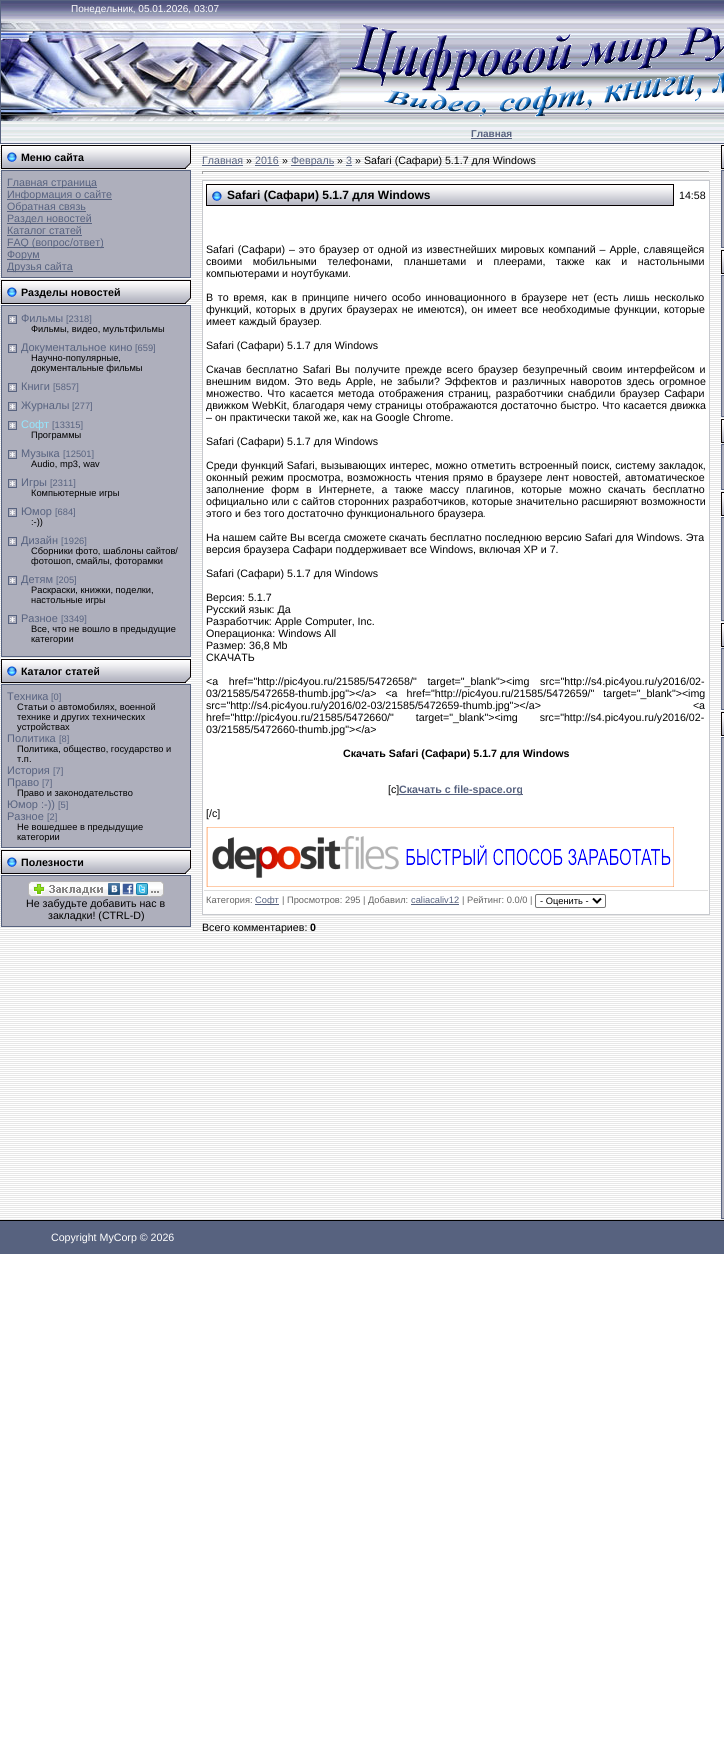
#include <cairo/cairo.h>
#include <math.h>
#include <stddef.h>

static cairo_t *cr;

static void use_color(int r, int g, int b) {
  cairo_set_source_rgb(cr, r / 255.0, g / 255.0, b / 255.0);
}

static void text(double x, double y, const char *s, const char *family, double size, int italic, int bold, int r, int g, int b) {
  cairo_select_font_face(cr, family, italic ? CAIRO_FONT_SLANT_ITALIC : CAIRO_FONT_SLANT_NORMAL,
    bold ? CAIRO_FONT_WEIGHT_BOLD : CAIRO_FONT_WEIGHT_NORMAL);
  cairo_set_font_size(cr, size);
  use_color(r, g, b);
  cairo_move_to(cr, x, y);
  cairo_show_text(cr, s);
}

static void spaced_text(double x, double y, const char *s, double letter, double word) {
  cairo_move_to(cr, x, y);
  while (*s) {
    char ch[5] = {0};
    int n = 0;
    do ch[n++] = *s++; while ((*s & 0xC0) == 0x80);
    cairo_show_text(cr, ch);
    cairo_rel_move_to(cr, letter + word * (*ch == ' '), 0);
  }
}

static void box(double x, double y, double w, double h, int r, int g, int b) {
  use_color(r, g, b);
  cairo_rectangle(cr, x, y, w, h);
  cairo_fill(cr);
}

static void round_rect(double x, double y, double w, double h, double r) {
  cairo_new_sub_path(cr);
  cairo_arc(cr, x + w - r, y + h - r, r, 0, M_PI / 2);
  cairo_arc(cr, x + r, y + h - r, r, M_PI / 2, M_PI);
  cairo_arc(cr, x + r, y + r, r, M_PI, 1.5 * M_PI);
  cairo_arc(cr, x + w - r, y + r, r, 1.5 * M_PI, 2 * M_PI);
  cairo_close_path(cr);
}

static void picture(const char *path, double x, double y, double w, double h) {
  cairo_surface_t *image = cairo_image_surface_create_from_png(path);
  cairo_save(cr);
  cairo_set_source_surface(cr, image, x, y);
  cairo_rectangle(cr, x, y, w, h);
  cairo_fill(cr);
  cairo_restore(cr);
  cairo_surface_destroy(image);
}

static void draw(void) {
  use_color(255, 255, 255);
  cairo_paint(cr);
  picture("img_01.png", 1, 1, 723, 142);
  cairo_rectangle(cr, 0.5, 0.5, 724, 143);
  use_color(87, 98, 127);
  cairo_set_line_width(cr, 1);
  cairo_stroke(cr);
  picture("img_02.png", 1, 21, 340, 100);
  picture("img_03.png", 351, 24, 373, 93);
  box(471, 138, 41, 1, 87, 98, 127);
  picture("img_04.png", 0, 145, 724, 1075);
  picture("img_05.png", 1, 145, 190, 24);
  use_color(174, 175, 188);
  cairo_rectangle(cr, 1.5, 170.5, 189, 107);
  cairo_fill_preserve(cr);
  use_color(87, 98, 127);
  cairo_stroke(cr);
  box(7, 187, 90, 1, 87, 98, 127);
  box(7, 199, 105, 1, 87, 98, 127);
  box(7, 211, 79, 1, 87, 98, 127);
  box(7, 223, 85, 1, 87, 98, 127);
  box(7, 235, 75, 1, 87, 98, 127);
  box(7, 247, 97, 1, 87, 98, 127);
  box(7, 259, 33, 1, 87, 98, 127);
  box(7, 271, 66, 1, 87, 98, 127);
  picture("img_06.png", 1, 280, 190, 24);
  use_color(174, 175, 188);
  cairo_rectangle(cr, 1.5, 305.5, 189, 351);
  cairo_fill_preserve(cr);
  use_color(87, 98, 127);
  cairo_stroke(cr);
  picture("img_07.png", 8, 315, 9, 9);
  picture("img_07.png", 8, 344, 9, 9);
  picture("img_07.png", 8, 383, 9, 9);
  picture("img_07.png", 8, 402, 9, 9);
  picture("img_07.png", 8, 421, 9, 9);
  picture("img_07.png", 8, 450, 9, 9);
  picture("img_07.png", 8, 479, 9, 9);
  picture("img_07.png", 8, 508, 9, 9);
  picture("img_07.png", 8, 537, 9, 9);
  picture("img_07.png", 8, 576, 9, 9);
  picture("img_07.png", 8, 615, 9, 9);
  picture("img_05.png", 1, 659, 190, 24);
  use_color(174, 175, 188);
  cairo_rectangle(cr, 1.5, 684.5, 189, 163);
  cairo_fill_preserve(cr);
  use_color(87, 98, 127);
  cairo_stroke(cr);
  picture("img_06.png", 1, 850, 190, 24);
  use_color(174, 175, 188);
  cairo_rectangle(cr, 1.5, 875.5, 189, 51);
  cairo_fill_preserve(cr);
  use_color(87, 98, 127);
  cairo_stroke(cr);
  picture("img_08.png", 28, 881, 136, 16);
  box(202, 165, 41, 1, 87, 98, 127);
  box(255, 165, 24, 1, 87, 98, 127);
  box(291, 165, 43, 1, 87, 98, 127);
  box(346, 165, 6, 1, 87, 98, 127);
  box(202, 171, 508, 1, 159, 159, 159);
  box(709, 171, 1, 3, 238, 238, 238);
  box(202, 173, 508, 1, 238, 238, 238);
  box(202, 171, 1, 3, 159, 159, 159);
  use_color(255, 255, 255);
  cairo_rectangle(cr, 202.5, 180.5, 507, 734);
  cairo_fill_preserve(cr);
  use_color(199, 201, 206);
  cairo_stroke(cr);
  picture("img_09.png", 207, 185, 466, 20);
  cairo_rectangle(cr, 206.5, 184.5, 467, 21);
  use_color(6, 0, 0);
  cairo_stroke(cr);
  box(399, 794, 124, 1, 87, 98, 127);
  picture("img_10.png", 206, 827, 468, 60);
  box(204, 890, 504, 1, 221, 221, 221);
  box(255, 904, 24, 1, 87, 98, 127);
  box(411, 904, 48, 1, 87, 98, 127);
  round_rect(535.5, 894.5, 70, 13, 1.5);
  use_color(118, 118, 118);
  cairo_stroke(cr);
  cairo_new_path(cr);
  cairo_move_to(cr, 593, 898.5);
  cairo_line_to(cr, 597, 902.5);
  cairo_line_to(cr, 601, 898.5);
  use_color(0, 0, 0);
  cairo_set_line_width(cr, 2);
  cairo_stroke(cr);
  picture("img_11.png", 721, 145, 3, 24);
  use_color(174, 175, 188);
  cairo_rectangle(cr, 721.5, 170.5, 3, 77);
  cairo_fill_preserve(cr);
  use_color(87, 98, 127);
  cairo_set_line_width(cr, 1);
  cairo_stroke(cr);
  picture("img_11.png", 721, 250, 3, 24);
  use_color(174, 175, 188);
  cairo_rectangle(cr, 721.5, 275.5, 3, 141);
  cairo_fill_preserve(cr);
  use_color(87, 98, 127);
  cairo_stroke(cr);
  picture("img_11.png", 721, 419, 3, 24);
  use_color(174, 175, 188);
  cairo_rectangle(cr, 721.5, 444.5, 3, 45);
  cairo_fill_preserve(cr);
  use_color(87, 98, 127);
  cairo_stroke(cr);
  picture("img_11.png", 721, 492, 3, 24);
  use_color(174, 175, 188);
  cairo_rectangle(cr, 721.5, 517.5, 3, 103);
  cairo_fill_preserve(cr);
  use_color(87, 98, 127);
  cairo_stroke(cr);
  picture("img_11.png", 721, 623, 3, 24);
  use_color(174, 175, 188);
  cairo_rectangle(cr, 721.5, 648.5, 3, 61);
  cairo_fill_preserve(cr);
  use_color(87, 98, 127);
  cairo_stroke(cr);
  picture("img_11.png", 721, 712, 3, 24);
  use_color(174, 175, 188);
  cairo_rectangle(cr, 721.5, 737.5, 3, 481);
  cairo_fill_preserve(cr);
  use_color(87, 98, 127);
  cairo_stroke(cr);
  box(0, 1221, 724, 33, 87, 98, 127);
  box(0, 1220, 724, 1, 0, 0, 0);
  text(71, 12, "Понедельник, 05.01.2026, 03:07", "Liberation Sans", 10, 0, 0, 255, 255, 255);
  text(471, 137, "Главная", "Liberation Sans", 10, 0, 1, 87, 98, 127);
  text(21, 161, "Меню сайта", "Liberation Sans", 10.65, 0, 1, 0, 0, 0);
  text(7, 186, "Главная страница", "Liberation Sans", 10.65, 0, 0, 87, 98, 127);
  text(7, 198, "Информация о сайте", "Liberation Sans", 10.65, 0, 0, 87, 98, 127);
  text(7, 210, "Обратная связь", "Liberation Sans", 10.65, 0, 0, 87, 98, 127);
  text(7, 222, "Раздел новостей", "Liberation Sans", 10.65, 0, 0, 87, 98, 127);
  text(7, 234, "Каталог статей", "Liberation Sans", 10.65, 0, 0, 87, 98, 127);
  text(7, 246, "FAQ (вопрос/ответ)", "Liberation Sans", 10.65, 0, 0, 87, 98, 127);
  text(7, 258, "Форум", "Liberation Sans", 10.65, 0, 0, 87, 98, 127);
  text(7, 270, "Друзья сайта", "Liberation Sans", 10.65, 0, 0, 87, 98, 127);
  text(21, 296, "Разделы новостей", "Liberation Sans", 10.65, 0, 1, 0, 0, 0);
  text(21, 322, "Фильмы", "Liberation Sans", 11, 0, 0, 87, 98, 127);
  text(66, 322, "[2318]", "Liberation Sans", 9.3, 0, 0, 87, 98, 127);
  text(31, 332, "Фильмы, видео, мультфильмы", "Liberation Sans", 9.3, 0, 0, 0, 0, 0);
  text(21, 351, "Документальное кино", "Liberation Sans", 11, 0, 0, 87, 98, 127);
  text(135, 351, "[659]", "Liberation Sans", 9.3, 0, 0, 87, 98, 127);
  text(31, 361, "Научно-популярные,", "Liberation Sans", 9.3, 0, 0, 0, 0, 0);
  text(31, 371, "документальные фильмы", "Liberation Sans", 9.3, 0, 0, 0, 0, 0);
  text(21, 390, "Книги", "Liberation Sans", 11, 0, 0, 87, 98, 127);
  text(53, 390, "[5857]", "Liberation Sans", 9.3, 0, 0, 87, 98, 127);
  text(21, 409, "Журналы", "Liberation Sans", 11, 0, 0, 87, 98, 127);
  text(72, 409, "[277]", "Liberation Sans", 9.3, 0, 0, 87, 98, 127);
  text(21, 428, "Софт", "Liberation Sans", 11, 0, 0, 148, 231, 255);
  text(52, 428, "[13315]", "Liberation Sans", 9.3, 0, 0, 87, 98, 127);
  text(31, 438, "Программы", "Liberation Sans", 9.3, 0, 0, 0, 0, 0);
  text(21, 457, "Музыка", "Liberation Sans", 11, 0, 0, 87, 98, 127);
  text(63, 457, "[12501]", "Liberation Sans", 9.3, 0, 0, 87, 98, 127);
  text(31, 467, "Audio, mp3, wav", "Liberation Sans", 9.3, 0, 0, 0, 0, 0);
  text(21, 486, "Игры", "Liberation Sans", 11, 0, 0, 87, 98, 127);
  text(50, 486, "[2311]", "Liberation Sans", 9.3, 0, 0, 87, 98, 127);
  text(31, 496, "Компьютерные игры", "Liberation Sans", 9.3, 0, 0, 0, 0, 0);
  text(21, 515, "Юмор", "Liberation Sans", 11, 0, 0, 87, 98, 127);
  text(55, 515, "[684]", "Liberation Sans", 9.3, 0, 0, 87, 98, 127);
  text(31, 525, ":-))", "Liberation Sans", 9.3, 0, 0, 0, 0, 0);
  text(21, 544, "Дизайн", "Liberation Sans", 11, 0, 0, 87, 98, 127);
  text(61, 544, "[1926]", "Liberation Sans", 9.3, 0, 0, 87, 98, 127);
  text(31, 554, "Сборники фото, шаблоны сайтов/", "Liberation Sans", 9.3, 0, 0, 0, 0, 0);
  text(31, 564, "фотошоп, смайлы, фоторамки", "Liberation Sans", 9.3, 0, 0, 0, 0, 0);
  text(21, 583, "Детям", "Liberation Sans", 11, 0, 0, 87, 98, 127);
  text(56, 583, "[205]", "Liberation Sans", 9.3, 0, 0, 87, 98, 127);
  text(31, 593, "Раскраски, книжки, поделки,", "Liberation Sans", 9.3, 0, 0, 0, 0, 0);
  text(31, 603, "настольные игры", "Liberation Sans", 9.3, 0, 0, 0, 0, 0);
  text(21, 622, "Разное", "Liberation Sans", 11, 0, 0, 87, 98, 127);
  text(61, 622, "[3349]", "Liberation Sans", 9.3, 0, 0, 87, 98, 127);
  text(31, 632, "Все, что не вошло в предыдущие", "Liberation Sans", 9.3, 0, 0, 0, 0, 0);
  text(31, 642, "категории", "Liberation Sans", 9.3, 0, 0, 0, 0, 0);
  text(21, 675, "Каталог статей", "Liberation Sans", 10.65, 0, 1, 0, 0, 0);
  text(7, 700, "Техника", "Liberation Sans", 11, 0, 0, 87, 98, 127);
  text(51, 700, "[0]", "Liberation Sans", 9.3, 0, 0, 87, 98, 127);
  text(17, 710, "Статьи о автомобилях, военной", "Liberation Sans", 9.3, 0, 0, 0, 0, 0);
  text(17, 720, "технике и других технических", "Liberation Sans", 9.3, 0, 0, 0, 0, 0);
  text(17, 730, "устройствах", "Liberation Sans", 9.3, 0, 0, 0, 0, 0);
  text(7, 742, "Политика", "Liberation Sans", 11, 0, 0, 87, 98, 127);
  text(59, 742, "[8]", "Liberation Sans", 9.3, 0, 0, 87, 98, 127);
  text(17, 752, "Политика, общество, государство и", "Liberation Sans", 9.3, 0, 0, 0, 0, 0);
  text(17, 762, "т.п.", "Liberation Sans", 9.3, 0, 0, 0, 0, 0);
  text(7, 774, "История", "Liberation Sans", 11, 0, 0, 87, 98, 127);
  text(53, 774, "[7]", "Liberation Sans", 9.3, 0, 0, 87, 98, 127);
  text(7, 786, "Право", "Liberation Sans", 11, 0, 0, 87, 98, 127);
  text(42, 786, "[7]", "Liberation Sans", 9.3, 0, 0, 87, 98, 127);
  text(17, 796, "Право и законодательство", "Liberation Sans", 9.3, 0, 0, 0, 0, 0);
  text(7, 808, "Юмор :-))", "Liberation Sans", 11, 0, 0, 87, 98, 127);
  text(58, 808, "[5]", "Liberation Sans", 9.3, 0, 0, 87, 98, 127);
  text(7, 820, "Разное", "Liberation Sans", 11, 0, 0, 87, 98, 127);
  text(47, 820, "[2]", "Liberation Sans", 9.3, 0, 0, 87, 98, 127);
  text(17, 830, "Не вошедшее в предыдущие", "Liberation Sans", 9.3, 0, 0, 0, 0, 0);
  text(17, 840, "категории", "Liberation Sans", 9.3, 0, 0, 0, 0, 0);
  text(21, 866, "Полезности", "Liberation Sans", 10.65, 0, 1, 0, 0, 0);
  text(26, 907, "Не забудьте добавить нас в", "Liberation Sans", 10.65, 0, 0, 0, 0, 0);
  text(48, 919, "закладки! (CTRL-D)", "Liberation Sans", 10.65, 0, 0, 0, 0, 0);
  text(202, 164, "Главная", "Liberation Sans", 10.65, 0, 0, 87, 98, 127);
  text(246, 164, "»", "Liberation Sans", 10.65, 0, 0, 0, 0, 0);
  text(255, 164, "2016", "Liberation Sans", 10.65, 0, 0, 87, 98, 127);
  text(282, 164, "»", "Liberation Sans", 10.65, 0, 0, 0, 0, 0);
  text(291, 164, "Февраль", "Liberation Sans", 10.65, 0, 0, 87, 98, 127);
  text(337, 164, "»", "Liberation Sans", 10.65, 0, 0, 0, 0, 0);
  text(346, 164, "3", "Liberation Sans", 10.65, 0, 0, 87, 98, 127);
  text(355, 164, "» Safari (Сафари) 5.1.7 для Windows", "Liberation Sans", 10.65, 0, 0, 0, 0, 0);
  text(227, 199, "Safari (Сафари) 5.1.7 для Windows", "Liberation Sans", 12, 0, 1, 0, 0, 0);
  text(679, 199, "14:58", "Liberation Sans", 10.65, 0, 0, 0, 0, 0);
  spaced_text(206, 253, "Safari (Сафари) – это браузер от одной из известнейших мировых компаний – Apple, славящейся", 0, 1);
  spaced_text(206, 265, "своими мобильными телефонами, планшетами и плеерами, также как и настольными", 0, 7.75);
  text(206, 277, "компьютерами и ноутбуками.", "Liberation Sans", 10.65, 0, 0, 0, 0, 0);
  spaced_text(206, 301, "В то время, как в принципе ничего особо инновационного в браузере нет (есть лишь несколько", 0, 1.75);
  spaced_text(206, 313, "функций, которых в других браузерах не имеются), он имеет все необходимые функции, которые", 0, 1.1);
  text(206, 325, "имеет каждый браузер.", "Liberation Sans", 10.65, 0, 0, 0, 0, 0);
  text(206, 349, "Safari (Сафари) 5.1.7 для Windows", "Liberation Sans", 10.65, 0, 0, 0, 0, 0);
  spaced_text(206, 373, "Скачав бесплатно Safari Вы получите прежде всего браузер безупречный своим интерфейсом и", 0, 1.75);
  spaced_text(206, 385, "внешним видом. Это ведь Apple, не забыли? Эффектов и различных наворотов здесь огромное", 0, 1.75);
  spaced_text(206, 397, "множество. Что касается метода отображения страниц, разработчики снабдили браузер Сафари", 0, 1.5);
  spaced_text(206, 409, "движком WebKit, благодаря чему страницы отображаются достаточно быстро. Что касается движка", 0, 0.25);
  text(206, 421, "– он практически такой же, как на Google Chrome.", "Liberation Sans", 10.65, 0, 0, 0, 0, 0);
  text(206, 445, "Safari (Сафари) 5.1.7 для Windows", "Liberation Sans", 10.65, 0, 0, 0, 0, 0);
  spaced_text(206, 469, "Среди функций Safari, вызывающих интерес, можно отметить встроенный поиск, систему закладок,", 0, 0.25);
  spaced_text(206, 481, "оконный режим просмотра, возможность чтения прямо в браузере лент новостей, автоматическое", 0, 0.75);
  spaced_text(206, 493, "заполнение форм в Интернете, а также массу плагинов, которые можно скачать бесплатно", 0, 4);
  spaced_text(206, 505, "официально или с сайтов сторонних разработчиков, которые значительно расширяют возможности", 0, 0.25);
  text(206, 517, "этого и без того достаточно функционального браузера.", "Liberation Sans", 10.65, 0, 0, 0, 0, 0);
  text(206, 541, "На нашем сайте Вы всегда сможете скачать бесплатно последнюю версию Safari для Windows. Эта", "Liberation Sans", 10.65, 0, 0, 0, 0, 0);
  text(206, 553, "версия браузера Сафари поддерживает все Windows, включая XP и 7.", "Liberation Sans", 10.65, 0, 0, 0, 0, 0);
  text(206, 577, "Safari (Сафари) 5.1.7 для Windows", "Liberation Sans", 10.65, 0, 0, 0, 0, 0);
  text(206, 601, "Версия: 5.1.7", "Liberation Sans", 10.65, 0, 0, 0, 0, 0);
  text(206, 613, "Русский язык: Да", "Liberation Sans", 10.65, 0, 0, 0, 0, 0);
  text(206, 625, "Разработчик: Apple Computer, Inc.", "Liberation Sans", 10.65, 0, 0, 0, 0, 0);
  text(206, 637, "Операционка: Windows All", "Liberation Sans", 10.65, 0, 0, 0, 0, 0);
  text(206, 649, "Размер: 36,8 Mb", "Liberation Sans", 10.65, 0, 0, 0, 0, 0);
  text(206, 661, "СКАЧАТЬ", "Liberation Sans", 10.65, 0, 0, 0, 0, 0);
  spaced_text(206, 685, "<a href=\"http://pic4you.ru/21585/5472658/\" target=\"_blank\"><img src=\"http://s4.pic4you.ru/y2016/02-", 0, 7.75);
  spaced_text(206, 697, "03/21585/5472658-thumb.jpg\"></a> <a href=\"http://pic4you.ru/21585/5472659/\" target=\"_blank\"><img", 0, 6);
  spaced_text(206, 709, "src=\"http://s4.pic4you.ru/y2016/02-03/21585/5472659-thumb.jpg\"></a> <a", 0, 149);
  spaced_text(206, 721, "href=\"http://pic4you.ru/21585/5472660/\" target=\"_blank\"><img src=\"http://s4.pic4you.ru/y2016/02-", 0, 19);
  text(206, 733, "03/21585/5472660-thumb.jpg\"></a>", "Liberation Sans", 10.65, 0, 0, 0, 0, 0);
  text(343, 757, "Скачать Safari (Сафари) 5.1.7 для Windows", "Liberation Sans", 10.65, 0, 1, 0, 0, 0);
  text(388, 793, "[c]", "Liberation Sans", 10.65, 0, 0, 0, 0, 0);
  text(399, 793, "Скачать с file-space.org", "Liberation Sans", 10.65, 0, 1, 87, 98, 127);
  text(206, 817, "[/c]", "Liberation Sans", 10.65, 0, 0, 0, 0, 0);
  text(206, 903, "Категория:", "Liberation Sans", 9.3, 0, 0, 99, 99, 99);
  text(255, 903, "Софт", "Liberation Sans", 9.3, 0, 0, 87, 98, 127);
  text(282, 903, "| Просмотров: 295 | Добавил:", "Liberation Sans", 9.3, 0, 0, 99, 99, 99);
  text(411, 903, "caliacaliv12", "Liberation Sans", 9.3, 0, 0, 87, 98, 127);
  text(462, 903, "| Рейтинг: 0.0/0 |", "Liberation Sans", 9.3, 0, 0, 99, 99, 99);
  text(540, 904, "- Оценить -", "Liberation Sans", 9.3, 0, 0, 0, 0, 0);
  text(202, 931, "Всего комментариев:", "Liberation Sans", 10.65, 0, 0, 0, 0, 0);
  text(310, 931, "0", "Liberation Sans", 10.65, 0, 1, 0, 0, 0);
  text(51, 1241, "Copyright MyCorp © 2026", "Liberation Sans", 10.65, 0, 0, 255, 255, 255);
}

int main(void) {
  cairo_surface_t *surface = cairo_image_surface_create(CAIRO_FORMAT_RGB24, 724, 1737);
  cr = cairo_create(surface);
  cairo_font_options_t *options = cairo_font_options_create();
  cairo_font_options_set_hint_metrics(options, CAIRO_HINT_METRICS_OFF);
  cairo_font_options_set_hint_style(options, CAIRO_HINT_STYLE_NONE);
  cairo_set_font_options(cr, options);
  cairo_set_miter_limit(cr, 4);
  draw();
  cairo_surface_write_to_png(surface, "out.png");
  cairo_font_options_destroy(options);
  cairo_destroy(cr);
  cairo_surface_destroy(surface);
  return 0;
}
